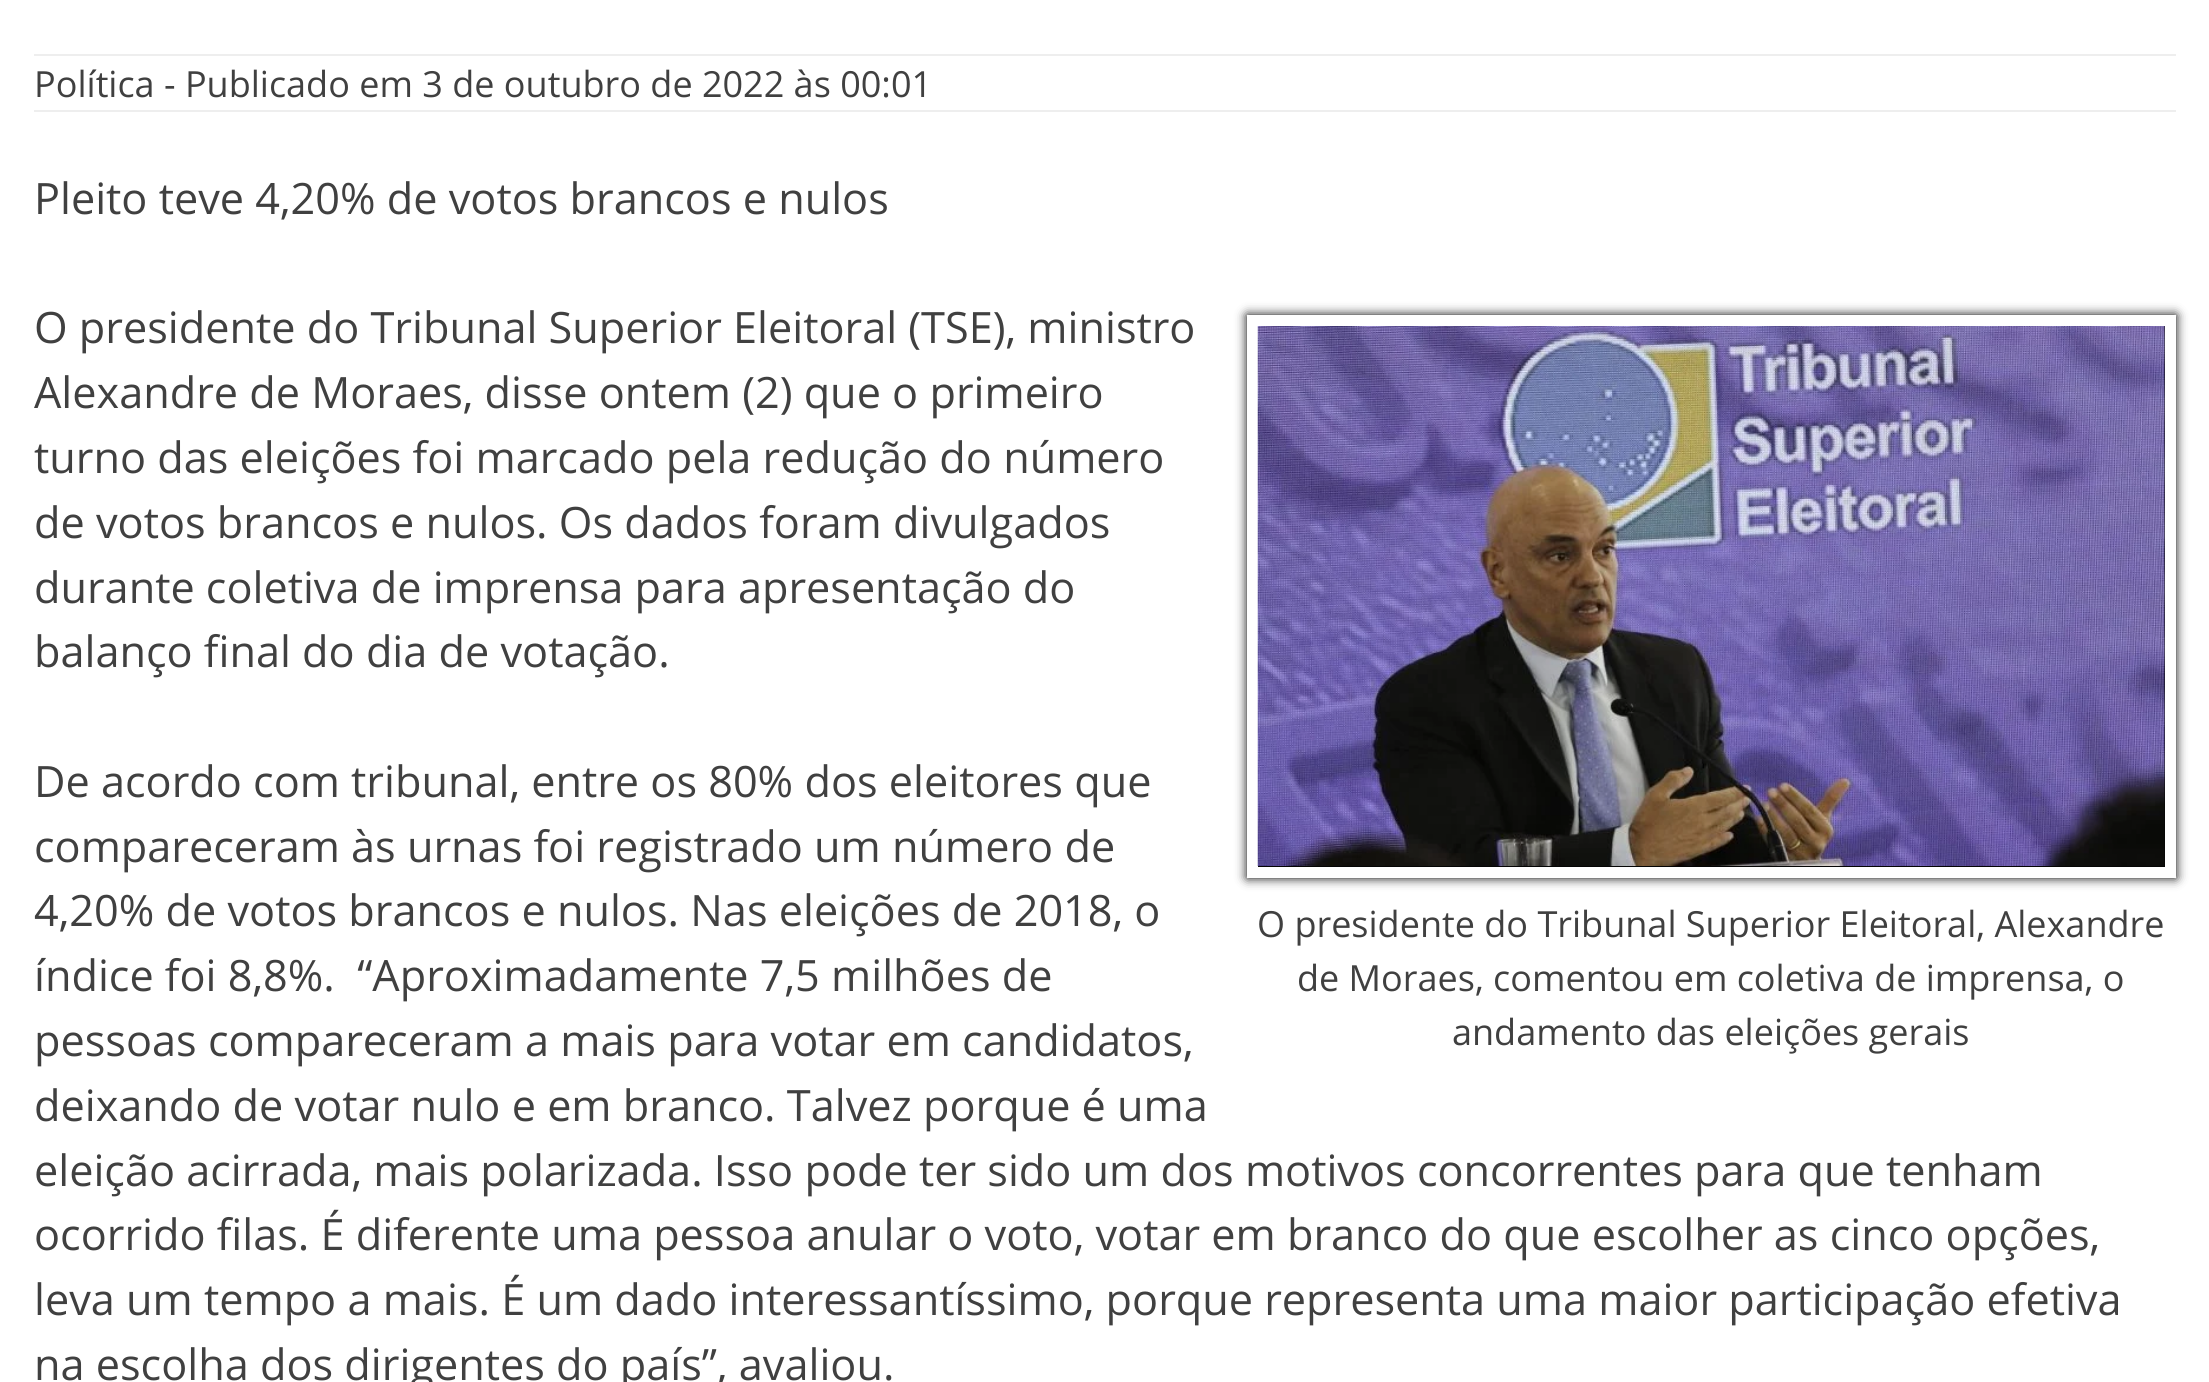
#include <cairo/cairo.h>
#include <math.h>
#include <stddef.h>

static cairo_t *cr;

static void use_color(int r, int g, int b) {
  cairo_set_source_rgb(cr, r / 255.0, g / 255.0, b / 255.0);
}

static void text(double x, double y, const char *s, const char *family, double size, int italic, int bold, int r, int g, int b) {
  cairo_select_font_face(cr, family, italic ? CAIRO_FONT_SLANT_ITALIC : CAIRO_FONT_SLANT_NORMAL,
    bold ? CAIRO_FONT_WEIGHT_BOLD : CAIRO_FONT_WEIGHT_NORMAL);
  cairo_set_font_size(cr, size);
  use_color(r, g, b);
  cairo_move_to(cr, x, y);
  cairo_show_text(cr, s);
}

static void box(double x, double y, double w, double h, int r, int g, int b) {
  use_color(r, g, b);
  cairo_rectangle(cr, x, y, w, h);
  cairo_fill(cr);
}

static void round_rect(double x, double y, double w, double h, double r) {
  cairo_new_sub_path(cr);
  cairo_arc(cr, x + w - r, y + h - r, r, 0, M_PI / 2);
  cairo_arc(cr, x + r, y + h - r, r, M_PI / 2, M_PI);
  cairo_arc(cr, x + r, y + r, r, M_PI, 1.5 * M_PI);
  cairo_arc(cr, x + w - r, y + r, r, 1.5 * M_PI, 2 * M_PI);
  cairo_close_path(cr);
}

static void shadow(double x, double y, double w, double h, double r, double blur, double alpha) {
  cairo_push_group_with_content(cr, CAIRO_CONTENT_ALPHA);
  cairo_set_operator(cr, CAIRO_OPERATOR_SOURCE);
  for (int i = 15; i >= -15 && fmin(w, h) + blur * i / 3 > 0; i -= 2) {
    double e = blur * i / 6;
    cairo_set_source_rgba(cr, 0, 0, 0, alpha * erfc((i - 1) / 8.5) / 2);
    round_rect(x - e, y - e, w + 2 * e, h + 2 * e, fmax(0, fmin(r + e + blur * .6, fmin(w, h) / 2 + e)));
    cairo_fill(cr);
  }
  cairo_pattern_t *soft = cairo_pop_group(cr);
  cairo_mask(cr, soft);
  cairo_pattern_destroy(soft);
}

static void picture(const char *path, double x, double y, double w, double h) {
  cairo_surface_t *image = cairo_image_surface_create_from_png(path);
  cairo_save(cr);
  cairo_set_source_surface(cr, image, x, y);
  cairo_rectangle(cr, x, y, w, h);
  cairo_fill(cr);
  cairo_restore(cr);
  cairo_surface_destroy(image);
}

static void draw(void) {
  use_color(255, 255, 255);
  cairo_paint(cr);
  box(34, 54, 2142, 2, 238, 238, 238);
  box(34, 110, 2142, 2, 238, 238, 238);
  use_color(0, 0, 0);
  shadow(1247, 315, 929, 563, 0, 5.5, 1);
  cairo_rectangle(cr, 1252.5, 320.5, 918, 552);
  use_color(255, 255, 255);
  cairo_set_line_width(cr, 11);
  cairo_stroke(cr);
  picture("img_01.png", 1257, 326, 908, 540);
  text(34, 97, "Política - Publicado em 3 de outubro de 2022 às 00:01", "Open Sans", 36, 0, 0, 64, 64, 64);
  text(34, 214, "Pleito teve 4,20% de votos brancos e nulos", "Open Sans", 43.2, 0, 0, 64, 64, 64);
  text(34, 343, "O presidente do Tribunal Superior Eleitoral (TSE), ministro", "Open Sans", 43.2, 0, 0, 64, 64, 64);
  text(34, 408, "Alexandre de Moraes, disse ontem (2) que o primeiro", "Open Sans", 43.2, 0, 0, 64, 64, 64);
  text(34, 473, "turno das eleições foi marcado pela redução do número", "Open Sans", 43.2, 0, 0, 64, 64, 64);
  text(34, 538, "de votos brancos e nulos. Os dados foram divulgados", "Open Sans", 43.2, 0, 0, 64, 64, 64);
  text(34, 603, "durante coletiva de imprensa para apresentação do", "Open Sans", 43.2, 0, 0, 64, 64, 64);
  text(34, 667, "balanço final do dia de votação.", "Open Sans", 43.2, 0, 0, 64, 64, 64);
  text(34, 797, "De acordo com tribunal, entre os 80% dos eleitores que", "Open Sans", 43.2, 0, 0, 64, 64, 64);
  text(34, 862, "compareceram às urnas foi registrado um número de", "Open Sans", 43.2, 0, 0, 64, 64, 64);
  text(34, 926, "4,20% de votos brancos e nulos. Nas eleições de 2018, o", "Open Sans", 43.2, 0, 0, 64, 64, 64);
  text(34, 991, "índice foi 8,8%.  “Aproximadamente 7,5 milhões de", "Open Sans", 43.2, 0, 0, 64, 64, 64);
  text(34, 1056, "pessoas compareceram a mais para votar em candidatos,", "Open Sans", 43.2, 0, 0, 64, 64, 64);
  text(34, 1121, "deixando de votar nulo e em branco. Talvez porque é uma", "Open Sans", 43.2, 0, 0, 64, 64, 64);
  text(34, 1186, "eleição acirrada, mais polarizada. Isso pode ter sido um dos motivos concorrentes para que tenham", "Open Sans", 43.2, 0, 0, 64, 64, 64);
  text(34, 1250, "ocorrido filas. É diferente uma pessoa anular o voto, votar em branco do que escolher as cinco opções,", "Open Sans", 43.2, 0, 0, 64, 64, 64);
  text(34, 1315, "leva um tempo a mais. É um dado interessantíssimo, porque representa uma maior participação efetiva", "Open Sans", 43.2, 0, 0, 64, 64, 64);
  text(34, 1380, "na escolha dos dirigentes do país”, avaliou.", "Open Sans", 43.2, 0, 0, 64, 64, 64);
  text(1257, 937, "O presidente do Tribunal Superior Eleitoral, Alexandre", "Open Sans", 36, 0, 0, 64, 64, 64);
  text(1297, 991, "de Moraes, comentou em coletiva de imprensa, o", "Open Sans", 36, 0, 0, 64, 64, 64);
  text(1452, 1045, "andamento das eleições gerais", "Open Sans", 36, 0, 0, 64, 64, 64);
}

int main(void) {
  cairo_surface_t *surface = cairo_image_surface_create(CAIRO_FORMAT_RGB24, 2209, 1382);
  cr = cairo_create(surface);
  cairo_font_options_t *options = cairo_font_options_create();
  cairo_font_options_set_hint_metrics(options, CAIRO_HINT_METRICS_OFF);
  cairo_font_options_set_hint_style(options, CAIRO_HINT_STYLE_NONE);
  cairo_set_font_options(cr, options);
  cairo_set_miter_limit(cr, 4);
  draw();
  cairo_surface_write_to_png(surface, "out.png");
  cairo_font_options_destroy(options);
  cairo_destroy(cr);
  cairo_surface_destroy(surface);
  return 0;
}
